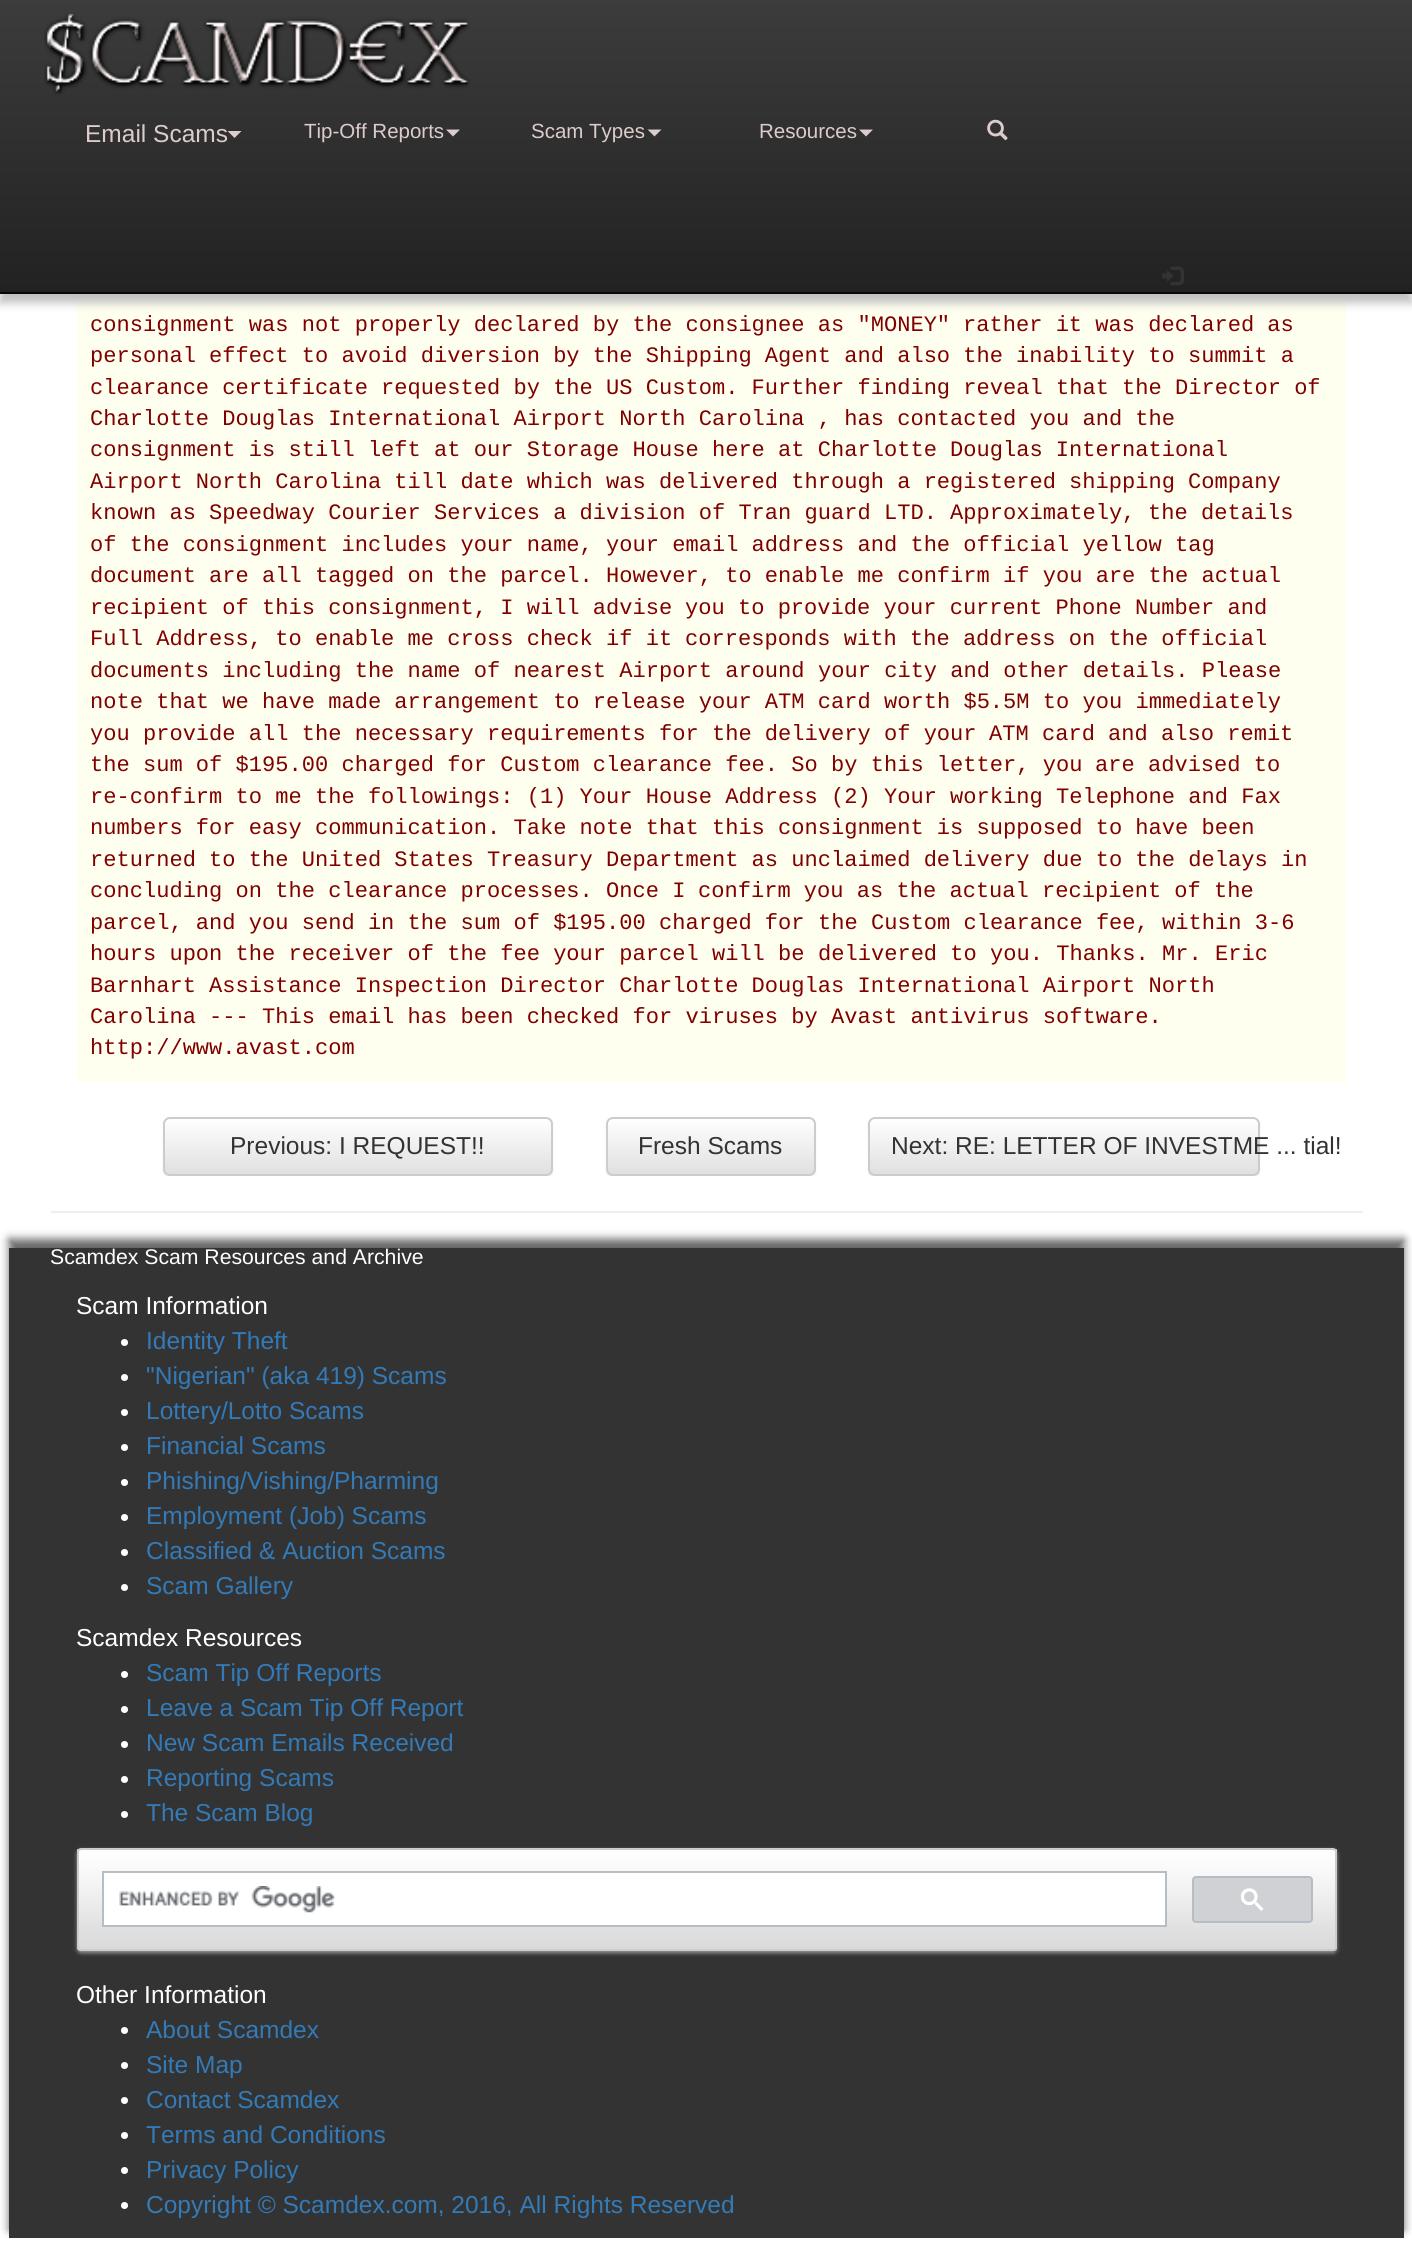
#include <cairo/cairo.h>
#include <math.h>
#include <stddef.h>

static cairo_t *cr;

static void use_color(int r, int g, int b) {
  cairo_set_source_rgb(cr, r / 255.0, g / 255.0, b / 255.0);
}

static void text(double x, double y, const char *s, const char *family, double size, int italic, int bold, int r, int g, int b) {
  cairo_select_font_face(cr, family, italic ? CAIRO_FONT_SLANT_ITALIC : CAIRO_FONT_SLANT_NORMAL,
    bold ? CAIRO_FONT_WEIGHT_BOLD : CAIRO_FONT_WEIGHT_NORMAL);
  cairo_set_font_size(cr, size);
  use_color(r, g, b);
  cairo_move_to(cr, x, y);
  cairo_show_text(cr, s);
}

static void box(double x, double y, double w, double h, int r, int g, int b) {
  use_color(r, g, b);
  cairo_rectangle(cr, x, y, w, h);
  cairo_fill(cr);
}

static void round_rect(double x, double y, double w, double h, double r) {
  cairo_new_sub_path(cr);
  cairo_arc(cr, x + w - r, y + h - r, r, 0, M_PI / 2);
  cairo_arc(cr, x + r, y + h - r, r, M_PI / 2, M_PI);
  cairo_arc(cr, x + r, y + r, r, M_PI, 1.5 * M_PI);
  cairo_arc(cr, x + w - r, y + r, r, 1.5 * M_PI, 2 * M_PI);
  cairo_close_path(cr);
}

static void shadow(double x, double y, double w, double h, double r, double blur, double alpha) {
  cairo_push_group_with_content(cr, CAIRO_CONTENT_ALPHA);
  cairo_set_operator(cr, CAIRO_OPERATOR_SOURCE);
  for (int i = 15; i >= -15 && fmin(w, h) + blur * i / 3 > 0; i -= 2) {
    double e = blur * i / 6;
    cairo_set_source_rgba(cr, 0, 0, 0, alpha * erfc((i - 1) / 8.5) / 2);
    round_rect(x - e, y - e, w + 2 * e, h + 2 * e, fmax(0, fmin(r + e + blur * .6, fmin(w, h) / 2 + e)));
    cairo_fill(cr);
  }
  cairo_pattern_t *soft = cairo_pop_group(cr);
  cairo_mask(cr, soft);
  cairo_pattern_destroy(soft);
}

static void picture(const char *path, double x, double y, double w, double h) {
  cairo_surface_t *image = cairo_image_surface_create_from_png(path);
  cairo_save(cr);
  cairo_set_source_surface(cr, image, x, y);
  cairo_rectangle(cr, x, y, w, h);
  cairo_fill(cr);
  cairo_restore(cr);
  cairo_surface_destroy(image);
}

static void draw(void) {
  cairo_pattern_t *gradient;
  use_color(255, 255, 255);
  cairo_paint(cr);
  box(77, 294, 1269, 788, 255, 255, 240);
  use_color(192, 192, 192);
  shadow(0, 9, 1412, 294, 0, 4.5, 1);
  gradient = cairo_pattern_create_linear(706, 0, 706, 292);
  cairo_pattern_add_color_stop_rgba(gradient, 0, 0.235, 0.235, 0.235, 1);
  cairo_pattern_add_color_stop_rgba(gradient, 1, 0.133, 0.133, 0.133, 1);
  cairo_set_source(cr, gradient);
  cairo_pattern_destroy(gradient);
  cairo_rectangle(cr, 0, 0, 1412, 292);
  cairo_fill(cr);
  box(0, 292, 1412, 2, 8, 8, 8);
  picture("img_01.png", 44, 12, 426, 83);
  use_color(221, 204, 204);
  cairo_new_path(cr);
  cairo_move_to(cr, 227.5, 131);
  cairo_line_to(cr, 241.5, 131);
  cairo_line_to(cr, 234.5, 138);
  cairo_close_path(cr);
  cairo_fill(cr);
  cairo_new_path(cr);
  cairo_move_to(cr, 446, 129.5);
  cairo_line_to(cr, 460, 129.5);
  cairo_line_to(cr, 453, 136.5);
  cairo_close_path(cr);
  cairo_fill(cr);
  cairo_new_path(cr);
  cairo_move_to(cr, 647.5, 129.5);
  cairo_line_to(cr, 661.5, 129.5);
  cairo_line_to(cr, 654.5, 136.5);
  cairo_close_path(cr);
  cairo_fill(cr);
  cairo_new_path(cr);
  cairo_move_to(cr, 859, 129.5);
  cairo_line_to(cr, 873, 129.5);
  cairo_line_to(cr, 866, 136.5);
  cairo_close_path(cr);
  cairo_fill(cr);
  picture("img_02.png", 987, 119, 21, 22);
  picture("img_03.png", 1162, 266, 22, 20);
  cairo_save(cr);
  cairo_rectangle(cr, 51, 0, 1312, 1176);
  cairo_clip(cr);
  use_color(0, 0, 0);
  shadow(163, 1118, 390, 60, 7, 1, 0.07);
  cairo_restore(cr);
  cairo_save(cr);
  round_rect(163, 1117, 390, 59, 7);
  cairo_clip(cr);
  gradient = cairo_pattern_create_linear(358, 1118, 358, 1174);
  cairo_pattern_add_color_stop_rgba(gradient, 0, 1, 1, 1, 1);
  cairo_pattern_add_color_stop_rgba(gradient, 1, 0.878, 0.878, 0.878, 1);
  cairo_set_source(cr, gradient);
  cairo_pattern_destroy(gradient);
  cairo_rectangle(cr, 163, 1118, 390, 56);
  cairo_fill(cr);
  cairo_restore(cr);
  round_rect(164, 1118, 388, 57, 6);
  use_color(204, 204, 204);
  cairo_stroke(cr);
  cairo_save(cr);
  cairo_rectangle(cr, 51, 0, 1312, 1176);
  cairo_clip(cr);
  use_color(0, 0, 0);
  shadow(606, 1118, 210, 60, 7, 1, 0.07);
  cairo_restore(cr);
  cairo_save(cr);
  round_rect(606, 1117, 210, 59, 7);
  cairo_clip(cr);
  gradient = cairo_pattern_create_linear(711, 1118, 711, 1174);
  cairo_pattern_add_color_stop_rgba(gradient, 0, 1, 1, 1, 1);
  cairo_pattern_add_color_stop_rgba(gradient, 1, 0.878, 0.878, 0.878, 1);
  cairo_set_source(cr, gradient);
  cairo_pattern_destroy(gradient);
  cairo_rectangle(cr, 606, 1118, 210, 56);
  cairo_fill(cr);
  cairo_restore(cr);
  round_rect(607, 1118, 208, 57, 6);
  cairo_stroke(cr);
  cairo_save(cr);
  cairo_rectangle(cr, 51, 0, 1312, 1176);
  cairo_clip(cr);
  use_color(0, 0, 0);
  shadow(868, 1118, 392, 60, 7, 1, 0.07);
  cairo_restore(cr);
  cairo_save(cr);
  round_rect(868, 1117, 392, 59, 7);
  cairo_clip(cr);
  gradient = cairo_pattern_create_linear(1064, 1118, 1064, 1174);
  cairo_pattern_add_color_stop_rgba(gradient, 0, 1, 1, 1, 1);
  cairo_pattern_add_color_stop_rgba(gradient, 1, 0.878, 0.878, 0.878, 1);
  cairo_set_source(cr, gradient);
  cairo_pattern_destroy(gradient);
  cairo_rectangle(cr, 868, 1118, 392, 56);
  cairo_fill(cr);
  cairo_restore(cr);
  round_rect(869, 1118, 390, 57, 6);
  cairo_stroke(cr);
  box(51, 1211, 1312, 2, 238, 238, 238);
  use_color(50, 50, 50);
  shadow(9, 1239, 1395, 991, 0, 4.5, 0.75);
  box(9, 1248, 1395, 990, 51, 51, 51);
  use_color(255, 255, 255);
  cairo_arc(cr, 124.5, 1342.5, 3.5, 0, 2 * M_PI);
  cairo_fill(cr);
  cairo_arc(cr, 124.5, 1377.5, 3.5, 0, 2 * M_PI);
  cairo_fill(cr);
  cairo_arc(cr, 124.5, 1412.5, 3.5, 0, 2 * M_PI);
  cairo_fill(cr);
  cairo_arc(cr, 124.5, 1447.5, 3.5, 0, 2 * M_PI);
  cairo_fill(cr);
  cairo_arc(cr, 124.5, 1482.5, 3.5, 0, 2 * M_PI);
  cairo_fill(cr);
  cairo_arc(cr, 124.5, 1517.5, 3.5, 0, 2 * M_PI);
  cairo_fill(cr);
  cairo_arc(cr, 124.5, 1552.5, 3.5, 0, 2 * M_PI);
  cairo_fill(cr);
  cairo_arc(cr, 124.5, 1587.5, 3.5, 0, 2 * M_PI);
  cairo_fill(cr);
  cairo_arc(cr, 124.5, 1674.5, 3.5, 0, 2 * M_PI);
  cairo_fill(cr);
  cairo_arc(cr, 124.5, 1709.5, 3.5, 0, 2 * M_PI);
  cairo_fill(cr);
  cairo_arc(cr, 124.5, 1744.5, 3.5, 0, 2 * M_PI);
  cairo_fill(cr);
  cairo_arc(cr, 124.5, 1779.5, 3.5, 0, 2 * M_PI);
  cairo_fill(cr);
  cairo_arc(cr, 124.5, 1814.5, 3.5, 0, 2 * M_PI);
  cairo_fill(cr);
  use_color(153, 153, 153);
  shadow(77, 1850, 1260, 103, 4, 2, 1);
  picture("img_04.png", 77, 1849, 1260, 102);
  round_rect(78, 1849, 1258, 101, 3);
  use_color(204, 204, 204);
  cairo_stroke(cr);
  use_color(255, 255, 255);
  cairo_rectangle(cr, 103, 1872, 1063, 54);
  cairo_fill_preserve(cr);
  use_color(182, 190, 197);
  cairo_stroke(cr);
  picture("img_05.png", 119, 1886, 216, 27);
  use_color(208, 209, 212);
  round_rect(1193, 1877, 119, 45, 3);
  cairo_fill_preserve(cr);
  use_color(182, 190, 197);
  cairo_stroke(cr);
  picture("img_06.png", 1241, 1888, 23, 23);
  use_color(255, 255, 255);
  cairo_arc(cr, 124.5, 2030.5, 3.5, 0, 2 * M_PI);
  cairo_fill(cr);
  cairo_arc(cr, 124.5, 2065.5, 3.5, 0, 2 * M_PI);
  cairo_fill(cr);
  cairo_arc(cr, 124.5, 2100.5, 3.5, 0, 2 * M_PI);
  cairo_fill(cr);
  cairo_arc(cr, 124.5, 2135.5, 3.5, 0, 2 * M_PI);
  cairo_fill(cr);
  cairo_arc(cr, 124.5, 2170.5, 3.5, 0, 2 * M_PI);
  cairo_fill(cr);
  cairo_arc(cr, 124.5, 2205.5, 3.5, 0, 2 * M_PI);
  cairo_fill(cr);
  text(85, 142, "Email Scams", "Liberation Sans", 24.5, 0, 0, 221, 204, 204);
  text(304, 138, "Tip-Off Reports", "Liberation Sans", 20.5, 0, 0, 221, 204, 204);
  text(531, 138, "Scam Types", "Liberation Sans", 20.5, 0, 0, 221, 204, 204);
  text(759, 138, "Resources", "Liberation Sans", 20.5, 0, 0, 221, 204, 204);
  text(90, 331, "consignment was not properly declared by the consignee as \"MONEY\"", "Liberation Mono", 22.05, 0, 0, 128, 0, 0);
  text(963, 331, "rather it was declared as", "Liberation Mono", 22.05, 0, 0, 128, 0, 0);
  text(90, 362, "personal effect to avoid diversion by the Shipping Agent and also the", "Liberation Mono", 22.05, 0, 0, 128, 0, 0);
  text(1016, 362, "inability to summit a", "Liberation Mono", 22.05, 0, 0, 128, 0, 0);
  text(90, 394, "clearance certificate requested by the US Custom. Further finding reveal that the Director of", "Liberation Mono", 22.05, 0, 0, 128, 0, 0);
  text(90, 425, "Charlotte Douglas International Airport North Carolina , has contacted you and the", "Liberation Mono", 22.05, 0, 0, 128, 0, 0);
  text(90, 456, "consignment is still left at our Storage House here at Charlotte", "Liberation Mono", 22.05, 0, 0, 128, 0, 0);
  text(950, 456, "Douglas International", "Liberation Mono", 22.05, 0, 0, 128, 0, 0);
  text(90, 488, "Airport North Carolina till date which was delivered through a registered", "Liberation Mono", 22.05, 0, 0, 128, 0, 0);
  text(1069, 488, "shipping Company", "Liberation Mono", 22.05, 0, 0, 128, 0, 0);
  text(90, 519, "known as Speedway Courier Services a division of Tran guard LTD. Approximately,", "Liberation Mono", 22.05, 0, 0, 128, 0, 0);
  text(1148, 519, "the details", "Liberation Mono", 22.05, 0, 0, 128, 0, 0);
  text(90, 551, "of the consignment includes your name, your email address and the official yellow tag", "Liberation Mono", 22.05, 0, 0, 128, 0, 0);
  text(90, 582, "document are all tagged on the parcel. However, to enable me confirm if you are the actual", "Liberation Mono", 22.05, 0, 0, 128, 0, 0);
  text(90, 614, "recipient of this consignment, I will advise", "Liberation Mono", 22.05, 0, 0, 128, 0, 0);
  text(685, 614, "you to provide your current Phone Number and", "Liberation Mono", 22.05, 0, 0, 128, 0, 0);
  text(90, 645, "Full Address, to enable me cross check if it", "Liberation Mono", 22.05, 0, 0, 128, 0, 0);
  text(685, 645, "corresponds with the address on the official", "Liberation Mono", 22.05, 0, 0, 128, 0, 0);
  text(90, 677, "documents including the name of nearest Airport around", "Liberation Mono", 22.05, 0, 0, 128, 0, 0);
  text(818, 677, "your city and other details. Please", "Liberation Mono", 22.05, 0, 0, 128, 0, 0);
  text(90, 708, "note that we have made arrangement to release your ATM card", "Liberation Mono", 22.05, 0, 0, 128, 0, 0);
  text(884, 708, "worth $5.5M to you immediately", "Liberation Mono", 22.05, 0, 0, 128, 0, 0);
  text(90, 740, "you provide all the necessary requirements for the delivery of your", "Liberation Mono", 22.05, 0, 0, 128, 0, 0);
  text(989, 740, "ATM card and also remit", "Liberation Mono", 22.05, 0, 0, 128, 0, 0);
  text(90, 771, "the sum of $195.00 charged for Custom clearance fee. So by this letter, you", "Liberation Mono", 22.05, 0, 0, 128, 0, 0);
  text(1095, 771, "are advised to", "Liberation Mono", 22.05, 0, 0, 128, 0, 0);
  text(90, 803, "re-confirm to me the followings: (1) Your House Address (2) Your working Telephone and Fax", "Liberation Mono", 22.05, 0, 0, 128, 0, 0);
  text(90, 834, "numbers for easy communication. Take note that this consignment is supposed to have been", "Liberation Mono", 22.05, 0, 0, 128, 0, 0);
  text(90, 866, "returned to the United States Treasury Department as unclaimed delivery due to the delays in", "Liberation Mono", 22.05, 0, 0, 128, 0, 0);
  text(90, 897, "concluding on the clearance processes. Once I", "Liberation Mono", 22.05, 0, 0, 128, 0, 0);
  text(698, 897, "confirm you as the actual recipient of the", "Liberation Mono", 22.05, 0, 0, 128, 0, 0);
  text(90, 929, "parcel, and you send in the sum of $195.00 charged for", "Liberation Mono", 22.05, 0, 0, 128, 0, 0);
  text(818, 929, "the Custom clearance fee, within 3-6", "Liberation Mono", 22.05, 0, 0, 128, 0, 0);
  text(90, 960, "hours upon the receiver of the fee your parcel will be", "Liberation Mono", 22.05, 0, 0, 128, 0, 0);
  text(818, 960, "delivered to you. Thanks. Mr. Eric", "Liberation Mono", 22.05, 0, 0, 128, 0, 0);
  text(90, 992, "Barnhart Assistance Inspection Director Charlotte Douglas International Airport North", "Liberation Mono", 22.05, 0, 0, 128, 0, 0);
  text(90, 1023, "Carolina --- This email has been checked for viruses by Avast antivirus software.", "Liberation Mono", 22.05, 0, 0, 128, 0, 0);
  text(90, 1054, "http://www.avast.com", "Liberation Mono", 22.05, 0, 0, 128, 0, 0);
  text(230, 1154, "Previous: I REQUEST!!", "Liberation Sans", 24.5, 0, 0, 51, 51, 51);
  text(638, 1154, "Fresh Scams", "Liberation Sans", 24.5, 0, 0, 51, 51, 51);
  text(891, 1154, "Next: RE: LETTER OF INVESTME ... tial!", "Liberation Sans", 24.5, 0, 0, 51, 51, 51);
  text(50, 1264, "Scamdex Scam Resources and Archive", "Liberation Sans", 21.2, 0, 0, 255, 255, 255);
  text(76, 1314, "Scam Information", "Liberation Sans", 24.5, 0, 0, 255, 255, 255);
  text(146, 1349, "Identity Theft", "Liberation Sans", 24.5, 0, 0, 51, 122, 183);
  text(146, 1384, "\"Nigerian\" (aka 419) Scams", "Liberation Sans", 24.5, 0, 0, 51, 122, 183);
  text(146, 1419, "Lottery/Lotto Scams", "Liberation Sans", 24.5, 0, 0, 51, 122, 183);
  text(146, 1454, "Financial Scams", "Liberation Sans", 24.5, 0, 0, 51, 122, 183);
  text(146, 1489, "Phishing/Vishing/Pharming", "Liberation Sans", 24.5, 0, 0, 51, 122, 183);
  text(146, 1524, "Employment (Job) Scams", "Liberation Sans", 24.5, 0, 0, 51, 122, 183);
  text(146, 1559, "Classified & Auction Scams", "Liberation Sans", 24.5, 0, 0, 51, 122, 183);
  text(146, 1594, "Scam Gallery", "Liberation Sans", 24.5, 0, 0, 51, 122, 183);
  text(76, 1646, "Scamdex Resources", "Liberation Sans", 24.5, 0, 0, 255, 255, 255);
  text(146, 1681, "Scam Tip Off Reports", "Liberation Sans", 24.5, 0, 0, 51, 122, 183);
  text(146, 1716, "Leave a Scam Tip Off Report", "Liberation Sans", 24.5, 0, 0, 51, 122, 183);
  text(146, 1751, "New Scam Emails Received", "Liberation Sans", 24.5, 0, 0, 51, 122, 183);
  text(146, 1786, "Reporting Scams", "Liberation Sans", 24.5, 0, 0, 51, 122, 183);
  text(146, 1821, "The Scam Blog", "Liberation Sans", 24.5, 0, 0, 51, 122, 183);
  text(76, 2003, "Other Information", "Liberation Sans", 24.5, 0, 0, 255, 255, 255);
  text(146, 2038, "About Scamdex", "Liberation Sans", 24.5, 0, 0, 51, 122, 183);
  text(146, 2073, "Site Map", "Liberation Sans", 24.5, 0, 0, 51, 122, 183);
  text(146, 2108, "Contact Scamdex", "Liberation Sans", 24.5, 0, 0, 51, 122, 183);
  text(146, 2143, "Terms and Conditions", "Liberation Sans", 24.5, 0, 0, 51, 122, 183);
  text(146, 2178, "Privacy Policy", "Liberation Sans", 24.5, 0, 0, 51, 122, 183);
  text(146, 2213, "Copyright © Scamdex.com, 2016, All Rights Reserved", "Liberation Sans", 24.5, 0, 0, 51, 122, 183);
}

int main(void) {
  cairo_surface_t *surface = cairo_image_surface_create(CAIRO_FORMAT_RGB24, 1412, 2246);
  cr = cairo_create(surface);
  cairo_font_options_t *options = cairo_font_options_create();
  cairo_font_options_set_hint_metrics(options, CAIRO_HINT_METRICS_OFF);
  cairo_font_options_set_hint_style(options, CAIRO_HINT_STYLE_NONE);
  cairo_set_font_options(cr, options);
  cairo_set_miter_limit(cr, 4);
  draw();
  cairo_surface_write_to_png(surface, "out.png");
  cairo_font_options_destroy(options);
  cairo_destroy(cr);
  cairo_surface_destroy(surface);
  return 0;
}
